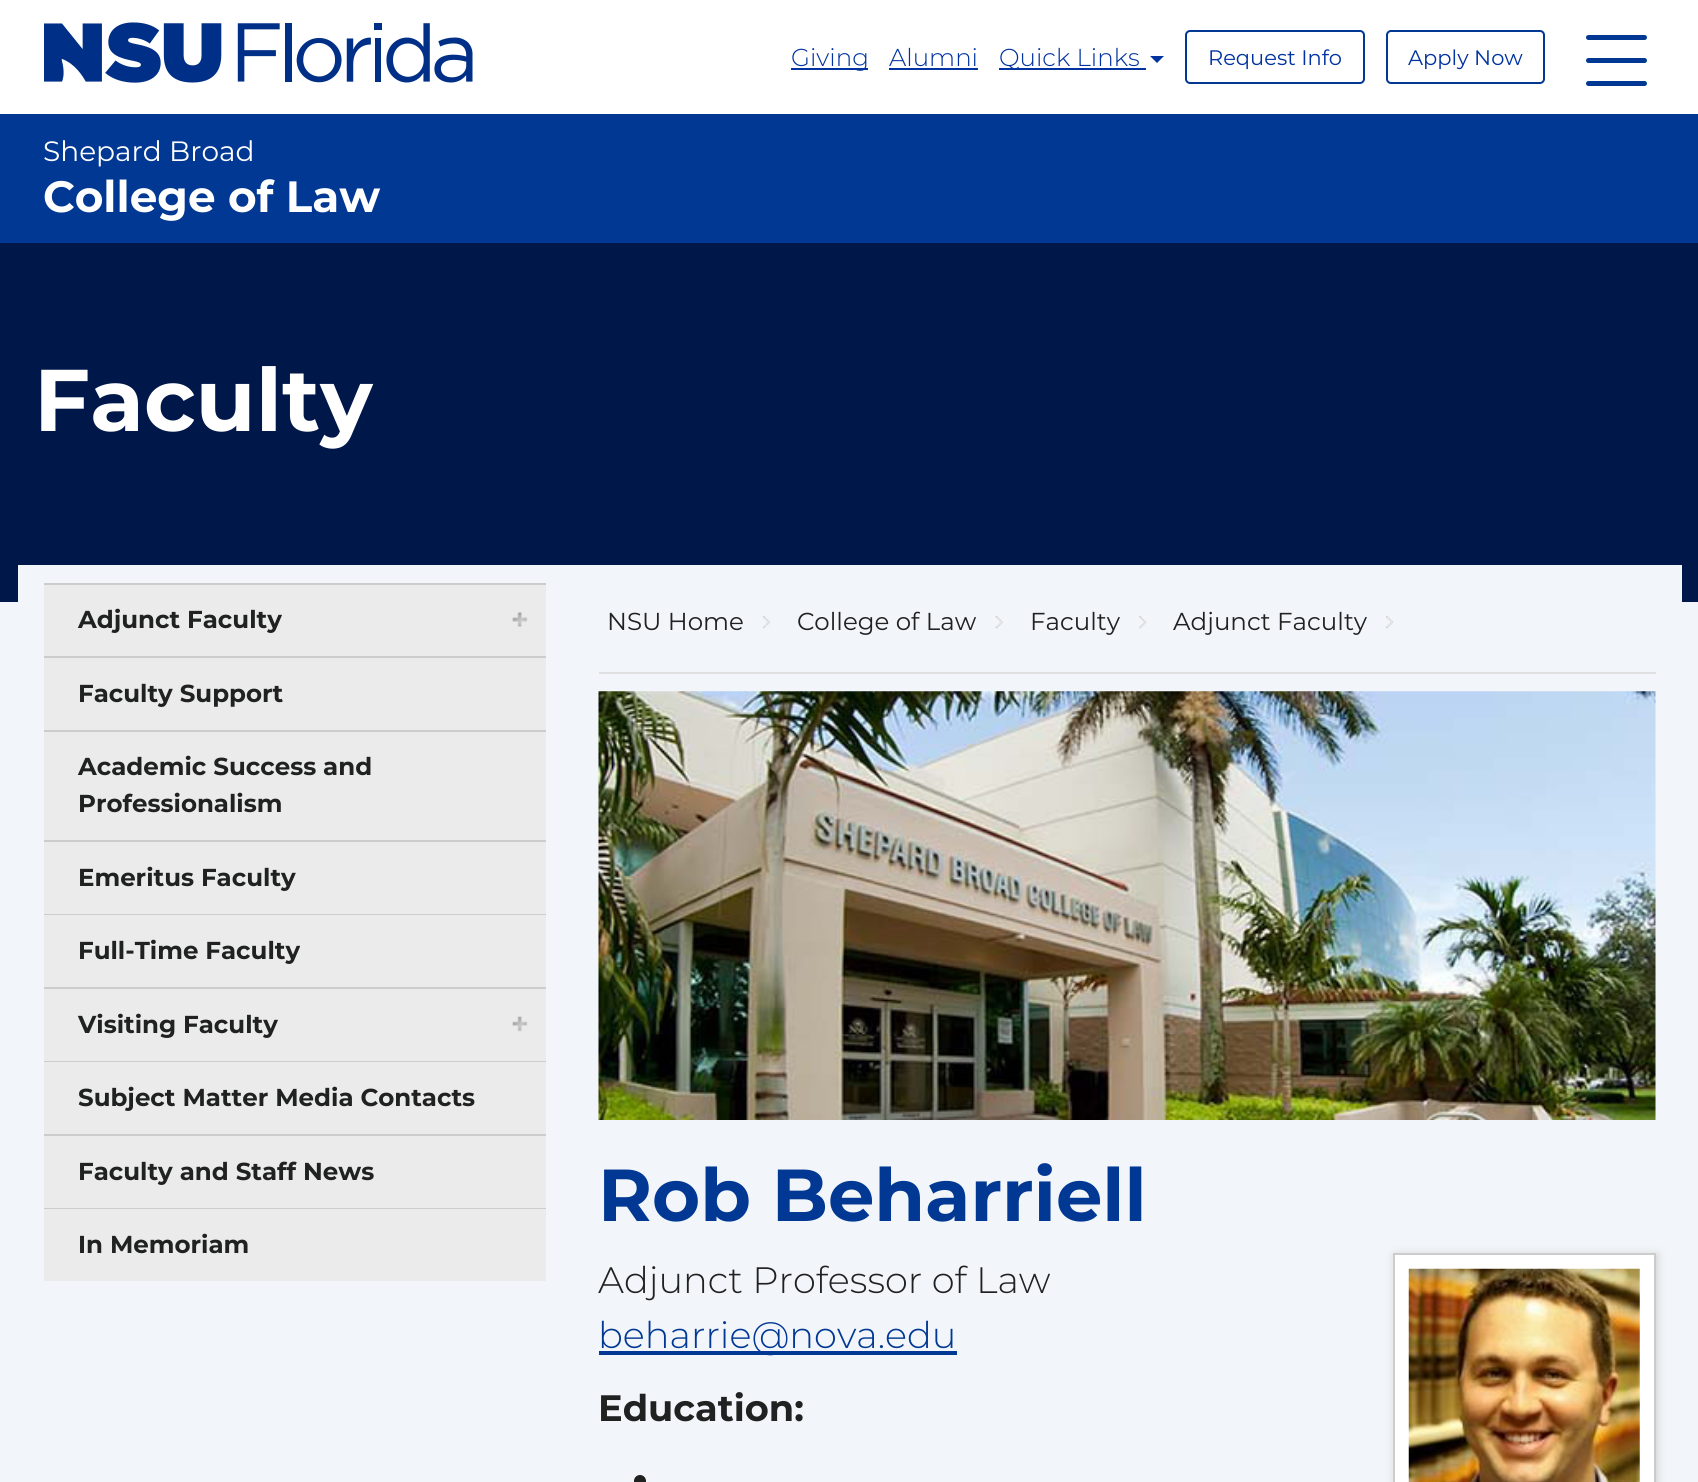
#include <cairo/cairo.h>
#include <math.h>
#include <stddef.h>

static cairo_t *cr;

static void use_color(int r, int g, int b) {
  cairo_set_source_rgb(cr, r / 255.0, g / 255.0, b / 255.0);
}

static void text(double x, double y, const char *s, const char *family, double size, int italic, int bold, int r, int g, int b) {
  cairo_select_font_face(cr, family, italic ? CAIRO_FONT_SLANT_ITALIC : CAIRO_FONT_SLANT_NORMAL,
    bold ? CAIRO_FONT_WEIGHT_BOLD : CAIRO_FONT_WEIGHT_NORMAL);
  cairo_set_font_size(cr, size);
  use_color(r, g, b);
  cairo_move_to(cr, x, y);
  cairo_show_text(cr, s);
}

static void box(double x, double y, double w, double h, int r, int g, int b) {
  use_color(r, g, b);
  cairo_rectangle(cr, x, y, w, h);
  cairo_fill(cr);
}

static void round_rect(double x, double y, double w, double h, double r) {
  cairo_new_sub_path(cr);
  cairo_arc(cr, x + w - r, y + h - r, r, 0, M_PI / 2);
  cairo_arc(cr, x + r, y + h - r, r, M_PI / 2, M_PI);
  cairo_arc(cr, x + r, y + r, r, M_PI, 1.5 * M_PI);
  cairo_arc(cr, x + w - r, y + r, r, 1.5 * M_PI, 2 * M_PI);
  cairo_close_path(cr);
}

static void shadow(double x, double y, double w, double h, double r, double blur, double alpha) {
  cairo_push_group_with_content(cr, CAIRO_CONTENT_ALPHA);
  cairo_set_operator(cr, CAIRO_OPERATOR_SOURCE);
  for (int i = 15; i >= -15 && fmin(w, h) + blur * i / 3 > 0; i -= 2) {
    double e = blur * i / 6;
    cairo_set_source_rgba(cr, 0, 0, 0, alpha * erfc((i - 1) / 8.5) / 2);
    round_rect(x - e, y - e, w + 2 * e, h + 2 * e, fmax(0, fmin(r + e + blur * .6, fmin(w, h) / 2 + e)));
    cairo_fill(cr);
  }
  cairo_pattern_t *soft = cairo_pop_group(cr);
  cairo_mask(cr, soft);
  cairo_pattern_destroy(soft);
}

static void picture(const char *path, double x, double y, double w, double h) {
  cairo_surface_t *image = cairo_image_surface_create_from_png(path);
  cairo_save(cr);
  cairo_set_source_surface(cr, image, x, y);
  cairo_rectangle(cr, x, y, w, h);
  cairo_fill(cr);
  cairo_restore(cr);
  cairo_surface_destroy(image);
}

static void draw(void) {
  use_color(242, 245, 249);
  cairo_paint(cr);
  box(0, 0, 1698, 114, 255, 255, 255);
  picture("img_01.png", 44, 22, 429, 61);
  box(791, 68, 77, 2, 0, 50, 160);
  box(889, 68, 89, 2, 0, 50, 160);
  box(999, 68, 147, 2, 0, 50, 160);
  cairo_new_path(cr);
  cairo_move_to(cr, 1150, 56);
  cairo_line_to(cr, 1164, 56);
  cairo_line_to(cr, 1157, 63);
  cairo_close_path(cr);
  cairo_fill(cr);
  round_rect(1186, 31, 178, 52, 4);
  use_color(0, 56, 147);
  cairo_stroke(cr);
  round_rect(1387, 31, 157, 52, 4);
  cairo_stroke(cr);
  round_rect(1586, 35, 61, 5, 2.5);
  cairo_fill(cr);
  round_rect(1586, 58, 61, 5, 2.5);
  cairo_fill(cr);
  round_rect(1586, 81, 61, 5, 2.5);
  cairo_fill(cr);
  box(0, 114, 1698, 129, 0, 56, 147);
  box(0, 243, 1698, 359, 0, 23, 73);
  box(18, 565, 1664, 37, 242, 245, 249);
  box(44, 583, 502, 2, 204, 204, 204);
  box(44, 585, 502, 71, 235, 235, 235);
  picture("img_02.png", 512, 612, 16, 15);
  box(44, 656, 502, 2, 204, 204, 204);
  box(44, 658, 502, 72, 235, 235, 235);
  box(44, 730, 502, 2, 204, 204, 204);
  box(44, 732, 502, 108, 235, 235, 235);
  box(44, 840, 502, 2, 204, 204, 204);
  box(44, 842, 502, 72, 235, 235, 235);
  box(44, 914, 502, 1, 204, 204, 204);
  box(44, 915, 502, 72, 235, 235, 235);
  box(44, 987, 502, 2, 204, 204, 204);
  box(44, 989, 502, 72, 235, 235, 235);
  picture("img_03.png", 512, 1016, 16, 16);
  box(44, 1061, 502, 1, 204, 204, 204);
  box(44, 1062, 502, 72, 235, 235, 235);
  box(44, 1134, 502, 2, 204, 204, 204);
  box(44, 1136, 502, 72, 235, 235, 235);
  box(44, 1208, 502, 1, 204, 204, 204);
  box(44, 1209, 502, 72, 235, 235, 235);
  box(599, 672, 1057, 2, 223, 223, 223);
  picture("img_04.png", 763, 616, 7, 13);
  picture("img_05.png", 995, 616, 8, 13);
  picture("img_06.png", 1139, 616, 8, 13);
  picture("img_07.png", 1386, 616, 7, 13);
  picture("img_08.png", 598, 691, 1058, 429);
  use_color(204, 204, 204);
  shadow(1395, 1255, 262, 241, 0, 4.5, 1);
  use_color(255, 255, 255);
  cairo_rectangle(cr, 1394, 1254, 261, 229);
  cairo_fill_preserve(cr);
  use_color(204, 204, 204);
  cairo_stroke(cr);
  picture("img_09.png", 1408, 1268, 232, 214);
  box(599, 1351, 358, 4, 0, 56, 147);
  use_color(32, 33, 33);
  round_rect(634, 1475, 12, 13, 6);
  cairo_fill(cr);
  text(791, 66, "Giving", "Montserrat Light", 24.5, 0, 0, 0, 50, 160);
  text(889, 66, "Alumni", "Montserrat Light", 24.5, 0, 0, 0, 50, 160);
  text(999, 66, "Quick Links", "Montserrat Light", 24.5, 0, 0, 0, 50, 160);
  text(1208, 65, "Request Info", "Montserrat", 21, 0, 0, 0, 50, 160);
  text(1408, 65, "Apply Now", "Montserrat", 21, 0, 0, 0, 50, 160);
  text(43, 161, "Shepard Broad", "Montserrat", 28, 0, 0, 255, 255, 255);
  text(43, 212, "College of Law", "Montserrat", 43.75, 0, 1, 255, 255, 255);
  text(34, 431, "Faculty", "Montserrat", 87.5, 0, 1, 255, 255, 255);
  text(78, 628, "Adjunct Faculty", "Montserrat", 24.5, 0, 1, 32, 33, 33);
  text(78, 702, "Faculty Support", "Montserrat", 24.5, 0, 1, 32, 33, 33);
  text(78, 775, "Academic Success and", "Montserrat", 24.5, 0, 1, 32, 33, 33);
  text(78, 812, "Professionalism", "Montserrat", 24.5, 0, 1, 32, 33, 33);
  text(78, 886, "Emeritus Faculty", "Montserrat", 24.5, 0, 1, 32, 33, 33);
  text(78, 959, "Full-Time Faculty", "Montserrat", 24.5, 0, 1, 32, 33, 33);
  text(78, 1033, "Visiting Faculty", "Montserrat", 24.5, 0, 1, 32, 33, 33);
  text(78, 1106, "Subject Matter Media Contacts", "Montserrat", 24.5, 0, 1, 32, 33, 33);
  text(78, 1180, "Faculty and Staff News", "Montserrat", 24.5, 0, 1, 32, 33, 33);
  text(78, 1253, "In Memoriam", "Montserrat", 24.5, 0, 1, 32, 33, 33);
  text(607, 630, "NSU Home", "Montserrat", 24.5, 0, 0, 32, 33, 33);
  text(797, 630, "College of Law", "Montserrat", 24.5, 0, 0, 32, 33, 33);
  text(1030, 630, "Faculty", "Montserrat", 24.5, 0, 0, 32, 33, 33);
  text(1173, 630, "Adjunct Faculty", "Montserrat", 24.5, 0, 0, 32, 33, 33);
  text(598, 1221, "Rob Beharriell", "Montserrat", 73.5, 0, 1, 0, 56, 147);
  text(598, 1293, "Adjunct Professor of Law", "Montserrat Light", 36.75, 0, 0, 32, 33, 33);
  text(598, 1348, "beharrie@nova.edu", "Montserrat Light", 36.75, 0, 0, 0, 56, 147);
  text(598, 1421, "Education:", "Montserrat", 36.75, 0, 1, 32, 33, 33);
}

int main(void) {
  cairo_surface_t *surface = cairo_image_surface_create(CAIRO_FORMAT_RGB24, 1698, 1482);
  cr = cairo_create(surface);
  cairo_font_options_t *options = cairo_font_options_create();
  cairo_font_options_set_hint_metrics(options, CAIRO_HINT_METRICS_OFF);
  cairo_font_options_set_hint_style(options, CAIRO_HINT_STYLE_NONE);
  cairo_set_font_options(cr, options);
  cairo_set_miter_limit(cr, 4);
  draw();
  cairo_surface_write_to_png(surface, "out.png");
  cairo_font_options_destroy(options);
  cairo_destroy(cr);
  cairo_surface_destroy(surface);
  return 0;
}
